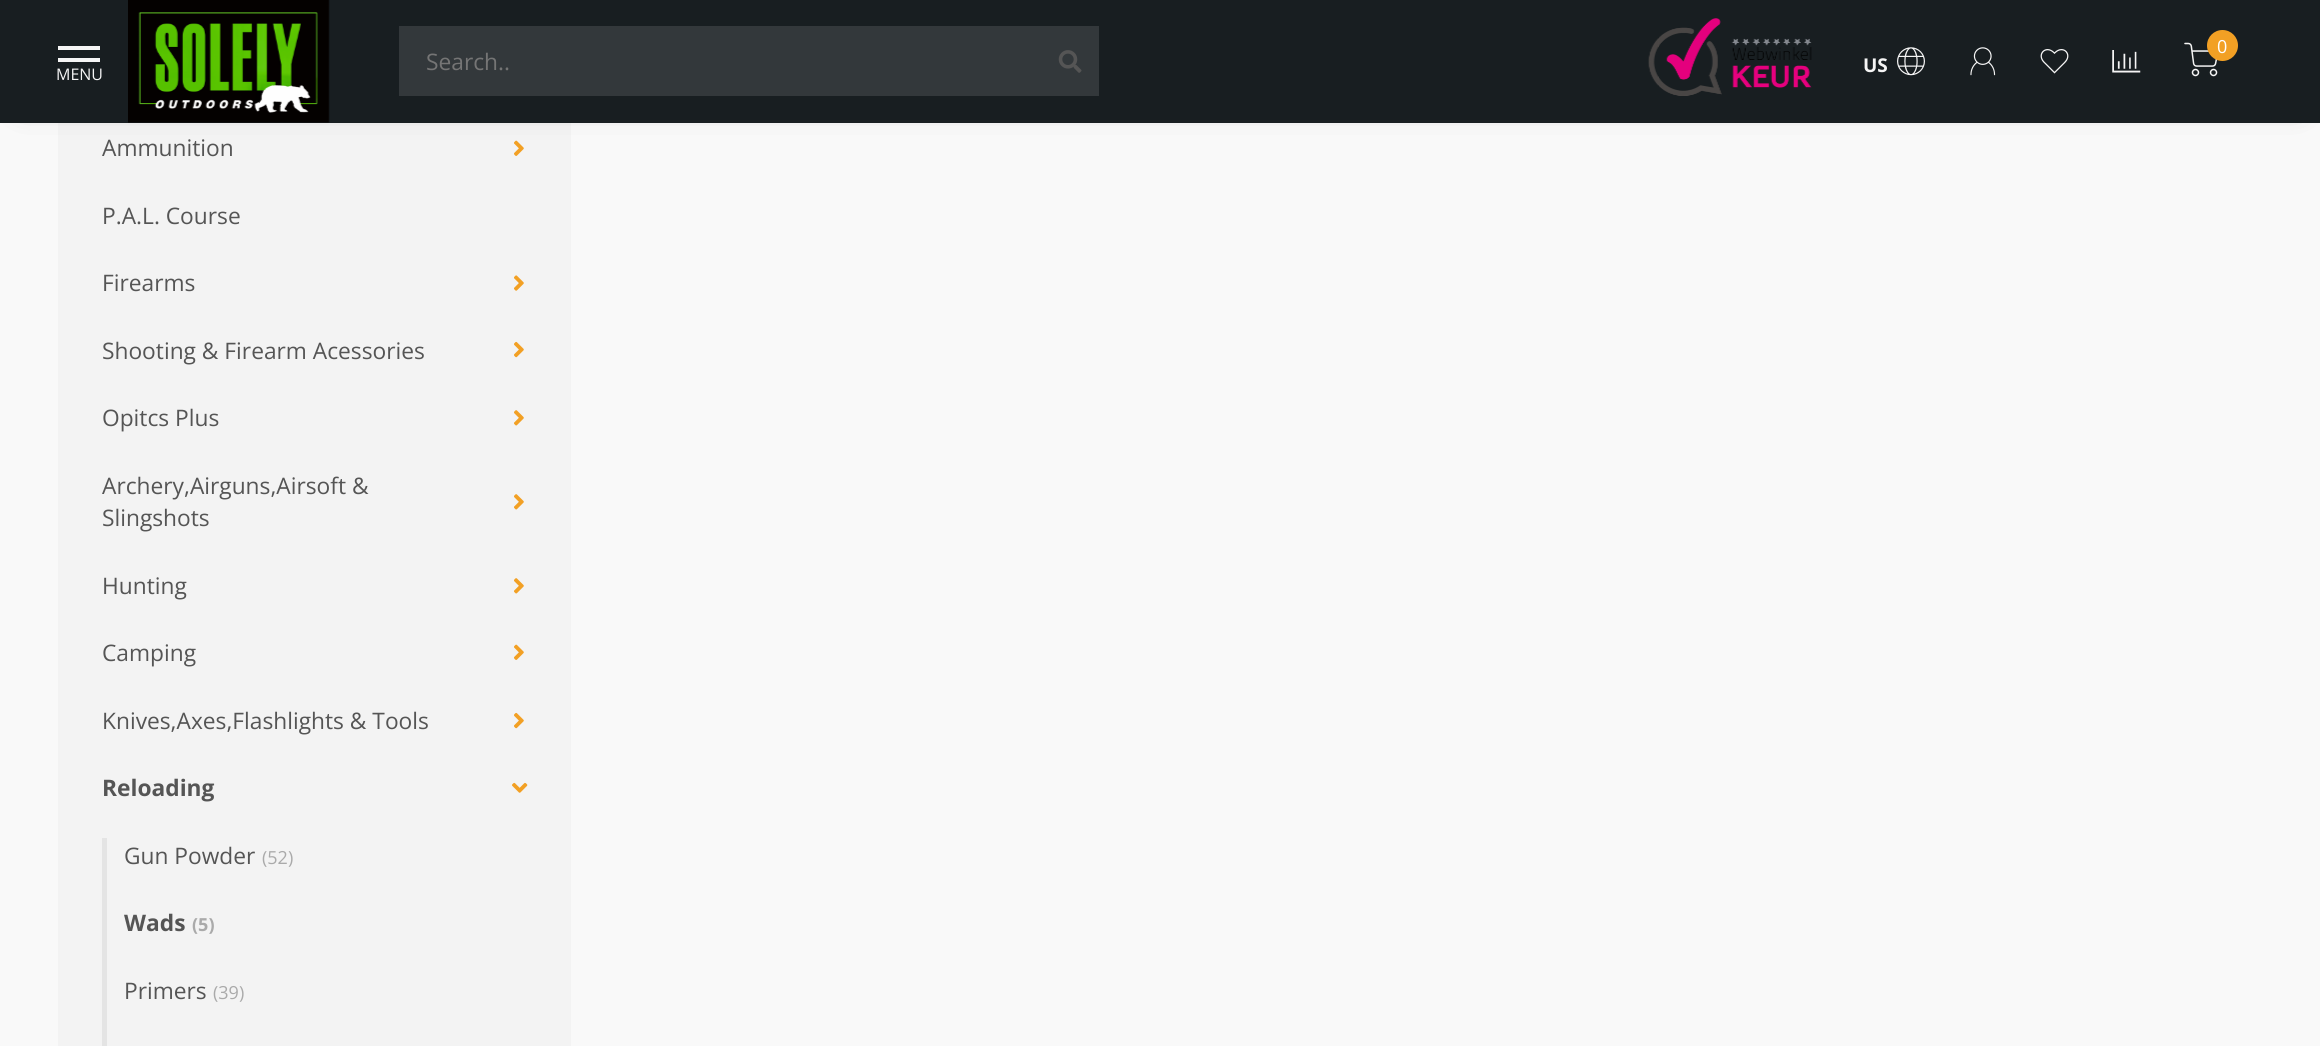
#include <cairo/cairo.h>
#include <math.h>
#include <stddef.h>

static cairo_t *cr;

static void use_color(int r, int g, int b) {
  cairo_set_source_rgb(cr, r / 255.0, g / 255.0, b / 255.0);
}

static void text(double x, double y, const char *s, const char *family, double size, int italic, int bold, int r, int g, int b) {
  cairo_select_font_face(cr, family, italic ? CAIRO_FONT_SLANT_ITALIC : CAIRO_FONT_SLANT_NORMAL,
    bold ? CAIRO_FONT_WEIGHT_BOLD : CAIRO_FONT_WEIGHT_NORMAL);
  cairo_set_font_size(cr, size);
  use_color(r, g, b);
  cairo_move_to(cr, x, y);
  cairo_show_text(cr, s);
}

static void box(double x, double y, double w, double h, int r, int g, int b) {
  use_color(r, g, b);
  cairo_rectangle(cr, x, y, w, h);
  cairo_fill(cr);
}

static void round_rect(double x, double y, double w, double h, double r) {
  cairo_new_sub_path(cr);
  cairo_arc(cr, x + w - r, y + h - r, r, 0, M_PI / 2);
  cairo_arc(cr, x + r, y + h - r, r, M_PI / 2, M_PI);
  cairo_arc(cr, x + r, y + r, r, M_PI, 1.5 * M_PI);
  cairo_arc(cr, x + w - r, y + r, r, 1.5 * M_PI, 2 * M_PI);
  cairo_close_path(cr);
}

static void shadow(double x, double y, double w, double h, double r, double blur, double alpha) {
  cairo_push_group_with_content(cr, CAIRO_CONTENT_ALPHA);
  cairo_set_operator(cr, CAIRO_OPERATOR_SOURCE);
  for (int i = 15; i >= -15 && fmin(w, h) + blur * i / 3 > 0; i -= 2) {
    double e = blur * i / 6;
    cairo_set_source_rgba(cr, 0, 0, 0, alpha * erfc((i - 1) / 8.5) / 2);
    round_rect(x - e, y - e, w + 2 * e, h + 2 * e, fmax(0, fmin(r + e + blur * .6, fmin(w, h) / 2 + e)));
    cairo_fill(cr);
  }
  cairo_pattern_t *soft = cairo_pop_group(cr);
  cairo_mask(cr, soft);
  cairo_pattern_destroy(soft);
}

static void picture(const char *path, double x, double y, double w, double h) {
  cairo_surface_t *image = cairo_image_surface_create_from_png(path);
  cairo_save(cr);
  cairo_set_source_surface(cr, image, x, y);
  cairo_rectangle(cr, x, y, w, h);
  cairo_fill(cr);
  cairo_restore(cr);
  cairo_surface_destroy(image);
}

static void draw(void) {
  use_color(249, 249, 249);
  cairo_paint(cr);
  box(58, 123, 513, 923, 243, 243, 243);
  picture("img_09.png", 514, 140, 10, 16);
  use_color(0, 0, 0);
  shadow(23, 23, 2275, 77, 0, 14, 0.8);
  box(0, 0, 2320, 123, 24, 30, 33);
  box(399, 26, 700, 70, 51, 56, 59);
  picture("img_01.png", 1058, 50, 24, 23);
  picture("img_02.png", 1648, 18, 164, 78);
  picture("img_03.png", 2184, 42, 34, 35);
  use_color(242, 160, 36);
  cairo_arc(cr, 2222.5, 45.5, 15.5, 0, 2 * M_PI);
  cairo_fill(cr);
  picture("img_04.png", 1897, 47, 28, 29);
  picture("img_05.png", 1970, 47, 26, 29);
  picture("img_06.png", 2040, 49, 29, 25);
  picture("img_07.png", 2112, 50, 29, 23);
  box(58, 46, 42, 4, 245, 245, 245);
  box(58, 58, 42, 4, 245, 245, 245);
  picture("img_08.png", 128, 0, 202, 123);
  picture("img_10.png", 514, 275, 10, 16);
  picture("img_11.png", 514, 341, 10, 17);
  picture("img_12.png", 514, 410, 10, 16);
  picture("img_12.png", 514, 494, 10, 16);
  picture("img_12.png", 514, 578, 10, 16);
  picture("img_09.png", 514, 644, 10, 16);
  picture("img_11.png", 514, 712, 10, 17);
  picture("img_13.png", 512, 782, 16, 11);
  box(102, 838, 5, 208, 228, 228, 228);
  text(426, 70, "Search..", "Open Sans", 22.75, 0, 0, 117, 117, 117);
  text(2217, 53, "0", "Open Sans", 18, 0, 0, 255, 255, 255);
  text(1863, 72, "US", "Open Sans", 19, 0, 1, 245, 245, 245);
  text(56, 80, "MENU", "Open Sans", 16, 0, 0, 245, 245, 245);
  text(102, 156, "Ammunition", "Open Sans", 22.75, 0, 0, 85, 85, 85);
  text(102, 224, "P.A.L. Course", "Open Sans", 22.75, 0, 0, 85, 85, 85);
  text(102, 291, "Firearms", "Open Sans", 22.75, 0, 0, 85, 85, 85);
  text(102, 359, "Shooting & Firearm Acessories", "Open Sans", 22.75, 0, 0, 85, 85, 85);
  text(102, 426, "Opitcs Plus", "Open Sans", 22.75, 0, 0, 85, 85, 85);
  text(102, 494, "Archery,Airguns,Airsoft &", "Open Sans", 22.75, 0, 0, 85, 85, 85);
  text(102, 526, "Slingshots", "Open Sans", 22.75, 0, 0, 85, 85, 85);
  text(102, 594, "Hunting", "Open Sans", 22.75, 0, 0, 85, 85, 85);
  text(102, 661, "Camping", "Open Sans", 22.75, 0, 0, 85, 85, 85);
  text(102, 729, "Knives,Axes,Flashlights & Tools", "Open Sans", 22.75, 0, 0, 85, 85, 85);
  text(102, 796, "Reloading", "Open Sans", 22.75, 0, 1, 85, 85, 85);
  text(124, 864, "Gun Powder", "Open Sans", 22.75, 0, 0, 85, 85, 85);
  text(262, 864, "(52)", "Open Sans", 18, 0, 0, 170, 170, 170);
  text(124, 931, "Wads", "Open Sans", 22.75, 0, 1, 85, 85, 85);
  text(192, 931, "(5)", "Open Sans", 18, 0, 1, 170, 170, 170);
  text(124, 999, "Primers", "Open Sans", 22.75, 0, 0, 85, 85, 85);
  text(213, 999, "(39)", "Open Sans", 18, 0, 0, 170, 170, 170);
}

int main(void) {
  cairo_surface_t *surface = cairo_image_surface_create(CAIRO_FORMAT_RGB24, 2320, 1046);
  cr = cairo_create(surface);
  cairo_font_options_t *options = cairo_font_options_create();
  cairo_font_options_set_hint_metrics(options, CAIRO_HINT_METRICS_OFF);
  cairo_font_options_set_hint_style(options, CAIRO_HINT_STYLE_NONE);
  cairo_set_font_options(cr, options);
  cairo_set_miter_limit(cr, 4);
  draw();
  cairo_surface_write_to_png(surface, "out.png");
  cairo_font_options_destroy(options);
  cairo_destroy(cr);
  cairo_surface_destroy(surface);
  return 0;
}
